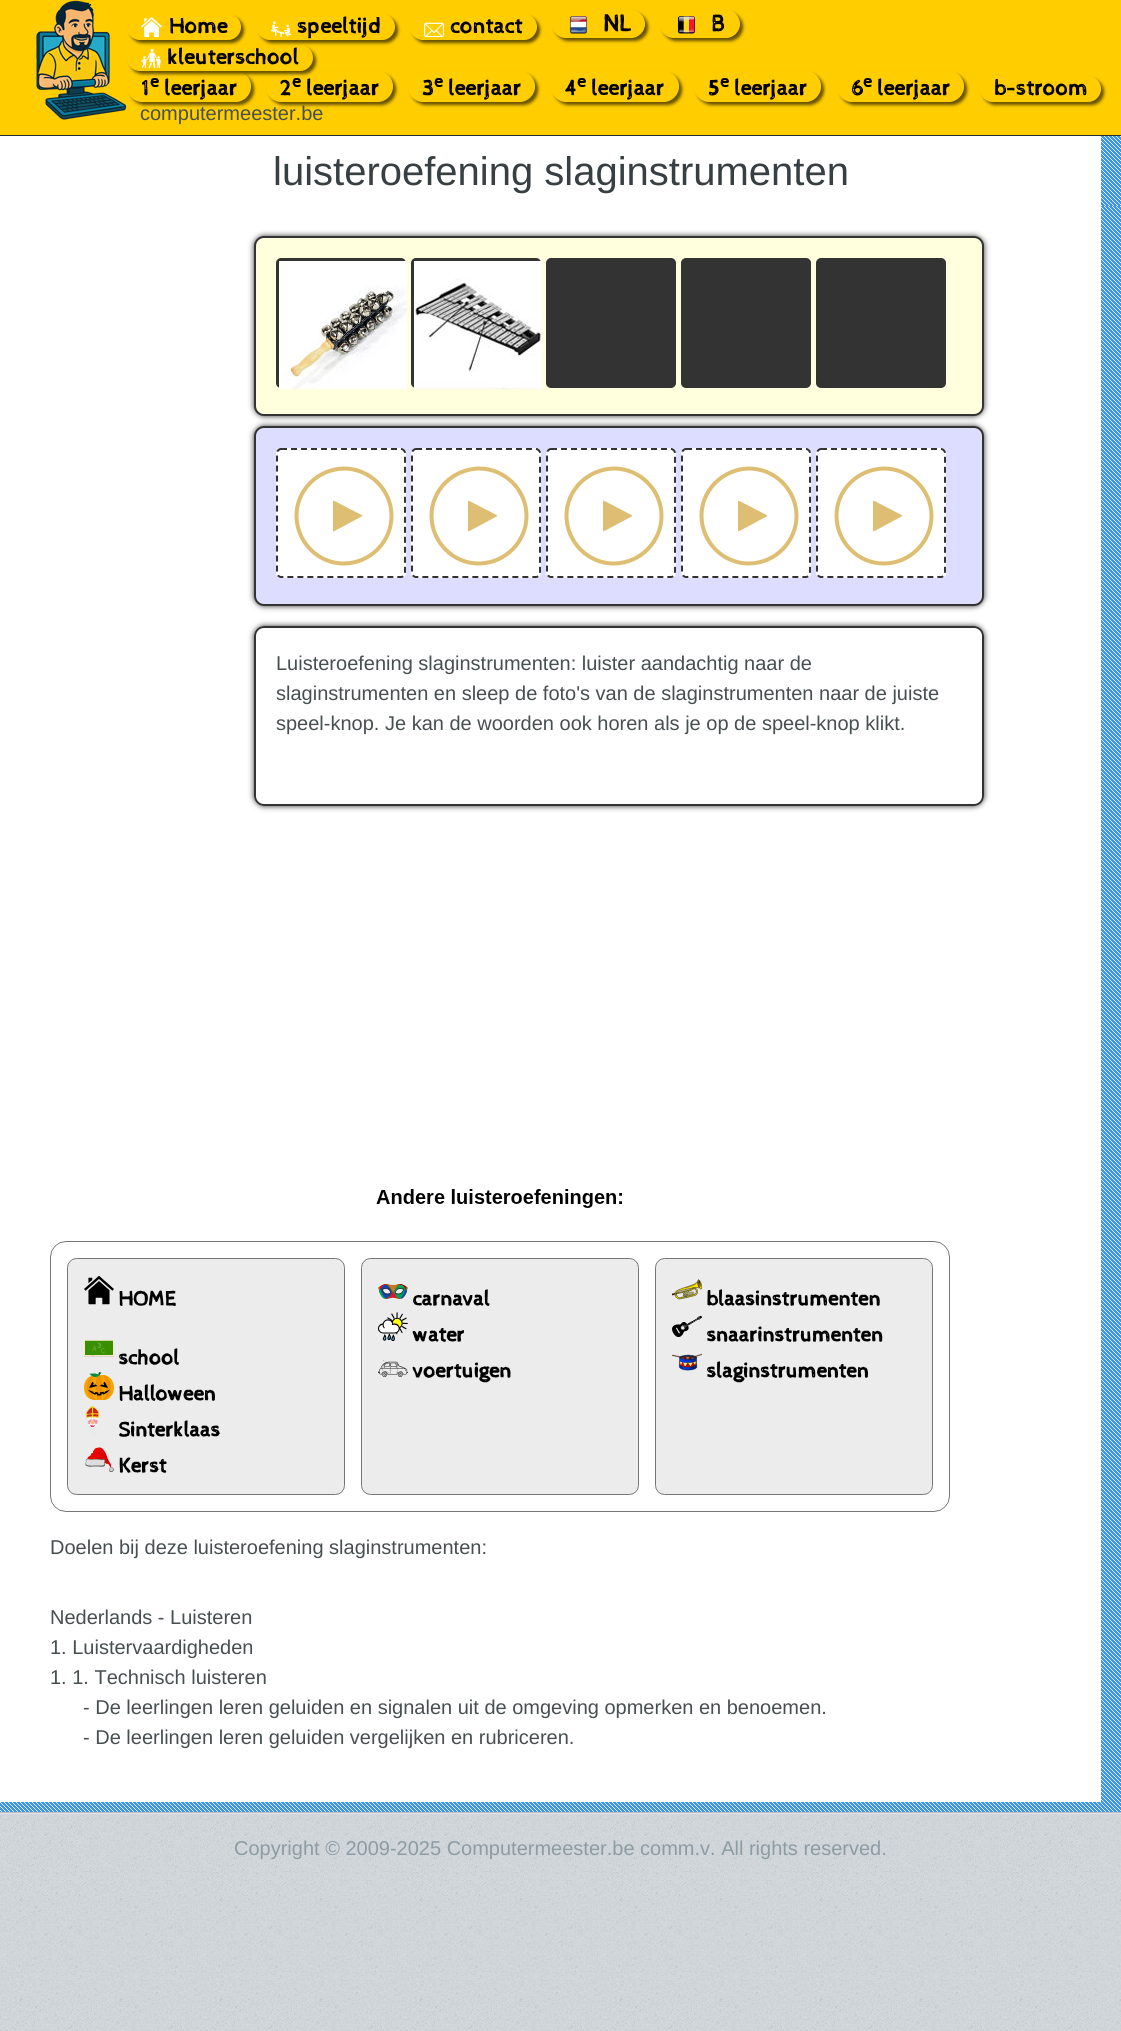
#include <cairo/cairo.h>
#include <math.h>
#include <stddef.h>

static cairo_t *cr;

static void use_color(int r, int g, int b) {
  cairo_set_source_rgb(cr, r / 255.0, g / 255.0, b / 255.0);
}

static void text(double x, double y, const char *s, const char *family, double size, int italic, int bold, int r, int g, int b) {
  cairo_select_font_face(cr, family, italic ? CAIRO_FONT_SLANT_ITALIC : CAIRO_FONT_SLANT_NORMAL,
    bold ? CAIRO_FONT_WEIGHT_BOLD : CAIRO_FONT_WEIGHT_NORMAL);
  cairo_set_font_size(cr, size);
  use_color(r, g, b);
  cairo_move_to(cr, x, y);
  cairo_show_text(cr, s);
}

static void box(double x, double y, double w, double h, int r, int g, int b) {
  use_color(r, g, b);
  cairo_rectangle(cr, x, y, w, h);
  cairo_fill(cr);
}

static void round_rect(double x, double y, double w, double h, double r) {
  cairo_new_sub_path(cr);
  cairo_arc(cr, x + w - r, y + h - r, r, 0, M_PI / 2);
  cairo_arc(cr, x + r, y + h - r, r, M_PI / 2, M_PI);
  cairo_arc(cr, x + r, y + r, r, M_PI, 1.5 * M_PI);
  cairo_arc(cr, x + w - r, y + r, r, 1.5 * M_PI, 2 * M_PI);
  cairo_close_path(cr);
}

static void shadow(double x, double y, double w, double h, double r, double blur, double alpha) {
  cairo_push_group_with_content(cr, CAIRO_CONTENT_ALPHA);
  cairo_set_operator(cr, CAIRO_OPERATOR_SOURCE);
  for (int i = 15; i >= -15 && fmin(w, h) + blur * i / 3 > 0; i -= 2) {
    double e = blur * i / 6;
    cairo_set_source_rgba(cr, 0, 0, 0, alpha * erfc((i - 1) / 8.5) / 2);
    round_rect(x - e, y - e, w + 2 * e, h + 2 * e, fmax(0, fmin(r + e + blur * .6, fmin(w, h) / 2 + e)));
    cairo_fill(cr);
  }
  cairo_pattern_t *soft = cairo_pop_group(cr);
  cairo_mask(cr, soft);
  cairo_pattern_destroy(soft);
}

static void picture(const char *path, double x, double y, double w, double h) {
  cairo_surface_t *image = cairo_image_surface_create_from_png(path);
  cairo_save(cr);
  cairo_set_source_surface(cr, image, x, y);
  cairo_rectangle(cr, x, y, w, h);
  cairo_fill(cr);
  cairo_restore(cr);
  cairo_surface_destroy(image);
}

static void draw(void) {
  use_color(255, 255, 255);
  cairo_paint(cr);
  picture("img_01.png", 0, 1814, 1121, 217);
  box(0, 0, 1121, 135, 255, 205, 0);
  box(0, 135, 1121, 1, 39, 45, 48);
  picture("img_08.png", 36, 0, 91, 120);
  cairo_save(cr);
  cairo_set_fill_rule(cr, CAIRO_FILL_RULE_EVEN_ODD);
  cairo_new_path(cr);
  cairo_move_to(cr, 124, 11);
  cairo_line_to(cr, 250, 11);
  cairo_line_to(cr, 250, 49);
  cairo_line_to(cr, 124, 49);
  cairo_close_path(cr);
  cairo_move_to(cr, 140, 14);
  cairo_line_to(cr, 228, 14);
  cairo_curve_to(cr, 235, 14, 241, 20, 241, 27);
  cairo_curve_to(cr, 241, 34, 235, 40, 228, 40);
  cairo_line_to(cr, 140, 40);
  cairo_curve_to(cr, 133, 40, 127, 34, 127, 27);
  cairo_curve_to(cr, 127, 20, 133, 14, 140, 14);
  cairo_close_path(cr);
  cairo_clip(cr);
  use_color(0, 0, 0);
  shadow(130, 17, 114, 26, 13, 1.5, 0.6);
  cairo_restore(cr);
  picture("img_02.png", 141, 17, 21, 20);
  cairo_save(cr);
  cairo_set_fill_rule(cr, CAIRO_FILL_RULE_EVEN_ODD);
  cairo_new_path(cr);
  cairo_move_to(cr, 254, 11);
  cairo_line_to(cr, 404, 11);
  cairo_line_to(cr, 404, 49);
  cairo_line_to(cr, 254, 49);
  cairo_close_path(cr);
  cairo_move_to(cr, 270, 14);
  cairo_line_to(cr, 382, 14);
  cairo_curve_to(cr, 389, 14, 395, 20, 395, 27);
  cairo_curve_to(cr, 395, 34, 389, 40, 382, 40);
  cairo_line_to(cr, 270, 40);
  cairo_curve_to(cr, 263, 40, 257, 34, 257, 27);
  cairo_curve_to(cr, 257, 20, 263, 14, 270, 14);
  cairo_close_path(cr);
  cairo_clip(cr);
  use_color(0, 0, 0);
  shadow(260, 17, 138, 26, 13, 1.5, 0.6);
  cairo_restore(cr);
  picture("img_03.png", 271, 21, 20, 16);
  cairo_save(cr);
  cairo_set_fill_rule(cr, CAIRO_FILL_RULE_EVEN_ODD);
  cairo_new_path(cr);
  cairo_move_to(cr, 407, 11);
  cairo_line_to(cr, 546, 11);
  cairo_line_to(cr, 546, 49);
  cairo_line_to(cr, 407, 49);
  cairo_close_path(cr);
  cairo_move_to(cr, 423, 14);
  cairo_line_to(cr, 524, 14);
  cairo_curve_to(cr, 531, 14, 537, 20, 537, 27);
  cairo_curve_to(cr, 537, 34, 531, 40, 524, 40);
  cairo_line_to(cr, 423, 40);
  cairo_curve_to(cr, 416, 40, 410, 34, 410, 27);
  cairo_curve_to(cr, 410, 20, 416, 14, 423, 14);
  cairo_close_path(cr);
  cairo_clip(cr);
  use_color(0, 0, 0);
  shadow(413, 17, 127, 26, 13, 1.5, 0.6);
  cairo_restore(cr);
  picture("img_04.png", 424, 22, 20, 15);
  cairo_save(cr);
  cairo_set_fill_rule(cr, CAIRO_FILL_RULE_EVEN_ODD);
  cairo_new_path(cr);
  cairo_move_to(cr, 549, 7);
  cairo_line_to(cr, 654, 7);
  cairo_line_to(cr, 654, 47);
  cairo_line_to(cr, 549, 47);
  cairo_close_path(cr);
  cairo_move_to(cr, 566, 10);
  cairo_line_to(cr, 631, 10);
  cairo_curve_to(cr, 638.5, 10, 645, 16.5, 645, 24);
  cairo_curve_to(cr, 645, 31.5, 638.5, 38, 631, 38);
  cairo_line_to(cr, 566, 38);
  cairo_curve_to(cr, 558.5, 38, 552, 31.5, 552, 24);
  cairo_curve_to(cr, 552, 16.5, 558.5, 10, 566, 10);
  cairo_close_path(cr);
  cairo_clip(cr);
  use_color(0, 0, 0);
  shadow(555, 13, 93, 28, 14, 1.5, 0.6);
  cairo_restore(cr);
  picture("img_05.png", 569, 16, 19, 18);
  cairo_save(cr);
  cairo_set_fill_rule(cr, CAIRO_FILL_RULE_EVEN_ODD);
  cairo_new_path(cr);
  cairo_move_to(cr, 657, 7);
  cairo_line_to(cr, 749, 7);
  cairo_line_to(cr, 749, 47);
  cairo_line_to(cr, 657, 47);
  cairo_close_path(cr);
  cairo_move_to(cr, 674, 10);
  cairo_line_to(cr, 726, 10);
  cairo_curve_to(cr, 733.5, 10, 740, 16.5, 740, 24);
  cairo_curve_to(cr, 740, 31.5, 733.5, 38, 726, 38);
  cairo_line_to(cr, 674, 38);
  cairo_curve_to(cr, 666.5, 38, 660, 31.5, 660, 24);
  cairo_curve_to(cr, 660, 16.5, 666.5, 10, 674, 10);
  cairo_close_path(cr);
  cairo_clip(cr);
  use_color(0, 0, 0);
  shadow(663, 13, 80, 28, 14, 1.5, 0.6);
  cairo_restore(cr);
  picture("img_06.png", 677, 16, 19, 18);
  cairo_save(cr);
  cairo_set_fill_rule(cr, CAIRO_FILL_RULE_EVEN_ODD);
  cairo_new_path(cr);
  cairo_move_to(cr, 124, 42);
  cairo_line_to(cr, 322, 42);
  cairo_line_to(cr, 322, 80);
  cairo_line_to(cr, 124, 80);
  cairo_close_path(cr);
  cairo_move_to(cr, 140, 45);
  cairo_line_to(cr, 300, 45);
  cairo_curve_to(cr, 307, 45, 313, 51, 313, 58);
  cairo_curve_to(cr, 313, 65, 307, 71, 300, 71);
  cairo_line_to(cr, 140, 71);
  cairo_curve_to(cr, 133, 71, 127, 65, 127, 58);
  cairo_curve_to(cr, 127, 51, 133, 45, 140, 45);
  cairo_close_path(cr);
  cairo_clip(cr);
  use_color(0, 0, 0);
  shadow(130, 48, 186, 26, 13, 1.5, 0.6);
  cairo_restore(cr);
  picture("img_07.png", 141, 48, 20, 20);
  cairo_save(cr);
  cairo_set_fill_rule(cr, CAIRO_FILL_RULE_EVEN_ODD);
  cairo_new_path(cr);
  cairo_move_to(cr, 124, 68);
  cairo_line_to(cr, 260, 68);
  cairo_line_to(cr, 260, 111);
  cairo_line_to(cr, 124, 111);
  cairo_close_path(cr);
  cairo_move_to(cr, 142.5, 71);
  cairo_line_to(cr, 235.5, 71);
  cairo_curve_to(cr, 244, 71, 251, 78, 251, 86.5);
  cairo_curve_to(cr, 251, 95, 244, 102, 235.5, 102);
  cairo_line_to(cr, 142.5, 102);
  cairo_curve_to(cr, 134, 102, 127, 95, 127, 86.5);
  cairo_curve_to(cr, 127, 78, 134, 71, 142.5, 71);
  cairo_close_path(cr);
  cairo_clip(cr);
  use_color(0, 0, 0);
  shadow(130, 74, 124, 31, 15.5, 1.5, 0.6);
  cairo_restore(cr);
  cairo_save(cr);
  cairo_set_fill_rule(cr, CAIRO_FILL_RULE_EVEN_ODD);
  cairo_new_path(cr);
  cairo_move_to(cr, 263, 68);
  cairo_line_to(cr, 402, 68);
  cairo_line_to(cr, 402, 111);
  cairo_line_to(cr, 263, 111);
  cairo_close_path(cr);
  cairo_move_to(cr, 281.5, 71);
  cairo_line_to(cr, 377.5, 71);
  cairo_curve_to(cr, 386, 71, 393, 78, 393, 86.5);
  cairo_curve_to(cr, 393, 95, 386, 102, 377.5, 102);
  cairo_line_to(cr, 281.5, 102);
  cairo_curve_to(cr, 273, 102, 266, 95, 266, 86.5);
  cairo_curve_to(cr, 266, 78, 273, 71, 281.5, 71);
  cairo_close_path(cr);
  cairo_clip(cr);
  use_color(0, 0, 0);
  shadow(269, 74, 127, 31, 15.5, 1.5, 0.6);
  cairo_restore(cr);
  cairo_save(cr);
  cairo_set_fill_rule(cr, CAIRO_FILL_RULE_EVEN_ODD);
  cairo_new_path(cr);
  cairo_move_to(cr, 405, 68);
  cairo_line_to(cr, 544, 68);
  cairo_line_to(cr, 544, 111);
  cairo_line_to(cr, 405, 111);
  cairo_close_path(cr);
  cairo_move_to(cr, 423.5, 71);
  cairo_line_to(cr, 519.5, 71);
  cairo_curve_to(cr, 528, 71, 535, 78, 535, 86.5);
  cairo_curve_to(cr, 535, 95, 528, 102, 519.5, 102);
  cairo_line_to(cr, 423.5, 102);
  cairo_curve_to(cr, 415, 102, 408, 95, 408, 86.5);
  cairo_curve_to(cr, 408, 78, 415, 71, 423.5, 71);
  cairo_close_path(cr);
  cairo_clip(cr);
  use_color(0, 0, 0);
  shadow(411, 74, 127, 31, 15.5, 1.5, 0.6);
  cairo_restore(cr);
  cairo_save(cr);
  cairo_set_fill_rule(cr, CAIRO_FILL_RULE_EVEN_ODD);
  cairo_new_path(cr);
  cairo_move_to(cr, 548, 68);
  cairo_line_to(cr, 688, 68);
  cairo_line_to(cr, 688, 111);
  cairo_line_to(cr, 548, 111);
  cairo_close_path(cr);
  cairo_move_to(cr, 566.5, 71);
  cairo_line_to(cr, 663.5, 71);
  cairo_curve_to(cr, 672, 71, 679, 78, 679, 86.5);
  cairo_curve_to(cr, 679, 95, 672, 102, 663.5, 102);
  cairo_line_to(cr, 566.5, 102);
  cairo_curve_to(cr, 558, 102, 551, 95, 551, 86.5);
  cairo_curve_to(cr, 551, 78, 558, 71, 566.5, 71);
  cairo_close_path(cr);
  cairo_clip(cr);
  use_color(0, 0, 0);
  shadow(554, 74, 128, 31, 15.5, 1.5, 0.6);
  cairo_restore(cr);
  cairo_save(cr);
  cairo_set_fill_rule(cr, CAIRO_FILL_RULE_EVEN_ODD);
  cairo_new_path(cr);
  cairo_move_to(cr, 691, 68);
  cairo_line_to(cr, 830, 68);
  cairo_line_to(cr, 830, 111);
  cairo_line_to(cr, 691, 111);
  cairo_close_path(cr);
  cairo_move_to(cr, 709.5, 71);
  cairo_line_to(cr, 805.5, 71);
  cairo_curve_to(cr, 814, 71, 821, 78, 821, 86.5);
  cairo_curve_to(cr, 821, 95, 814, 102, 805.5, 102);
  cairo_line_to(cr, 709.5, 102);
  cairo_curve_to(cr, 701, 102, 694, 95, 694, 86.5);
  cairo_curve_to(cr, 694, 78, 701, 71, 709.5, 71);
  cairo_close_path(cr);
  cairo_clip(cr);
  use_color(0, 0, 0);
  shadow(697, 74, 127, 31, 15.5, 1.5, 0.6);
  cairo_restore(cr);
  cairo_save(cr);
  cairo_set_fill_rule(cr, CAIRO_FILL_RULE_EVEN_ODD);
  cairo_new_path(cr);
  cairo_move_to(cr, 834, 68);
  cairo_line_to(cr, 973, 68);
  cairo_line_to(cr, 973, 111);
  cairo_line_to(cr, 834, 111);
  cairo_close_path(cr);
  cairo_move_to(cr, 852.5, 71);
  cairo_line_to(cr, 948.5, 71);
  cairo_curve_to(cr, 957, 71, 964, 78, 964, 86.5);
  cairo_curve_to(cr, 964, 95, 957, 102, 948.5, 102);
  cairo_line_to(cr, 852.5, 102);
  cairo_curve_to(cr, 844, 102, 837, 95, 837, 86.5);
  cairo_curve_to(cr, 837, 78, 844, 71, 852.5, 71);
  cairo_close_path(cr);
  cairo_clip(cr);
  use_color(0, 0, 0);
  shadow(840, 74, 127, 31, 15.5, 1.5, 0.6);
  cairo_restore(cr);
  cairo_save(cr);
  cairo_set_fill_rule(cr, CAIRO_FILL_RULE_EVEN_ODD);
  cairo_new_path(cr);
  cairo_move_to(cr, 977, 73);
  cairo_line_to(cr, 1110, 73);
  cairo_line_to(cr, 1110, 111);
  cairo_line_to(cr, 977, 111);
  cairo_close_path(cr);
  cairo_move_to(cr, 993, 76);
  cairo_line_to(cr, 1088, 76);
  cairo_curve_to(cr, 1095, 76, 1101, 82, 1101, 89);
  cairo_curve_to(cr, 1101, 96, 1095, 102, 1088, 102);
  cairo_line_to(cr, 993, 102);
  cairo_curve_to(cr, 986, 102, 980, 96, 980, 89);
  cairo_curve_to(cr, 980, 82, 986, 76, 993, 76);
  cairo_close_path(cr);
  cairo_clip(cr);
  use_color(0, 0, 0);
  shadow(983, 79, 121, 26, 13, 1.5, 0.6);
  cairo_restore(cr);
  box(1101, 136, 20, 710, 59, 150, 229);
  picture("img_09.png", 1101, 136, 20, 70);
  picture("img_10.png", 1101, 206, 20, 640);
  use_color(0, 0, 0);
  shadow(254, 236, 730, 180, 10, 3, 0.8);
  use_color(255, 255, 221);
  round_rect(255, 237, 728, 178, 9);
  cairo_fill_preserve(cr);
  use_color(51, 51, 51);
  cairo_stroke(cr);
  round_rect(277, 259, 128, 128, 4);
  cairo_fill_preserve(cr);
  cairo_stroke(cr);
  picture("img_11.png", 279, 261, 128, 128);
  round_rect(412, 259, 128, 128, 4);
  cairo_fill_preserve(cr);
  cairo_stroke(cr);
  picture("img_12.png", 414, 261, 128, 128);
  round_rect(547, 259, 128, 128, 4);
  cairo_fill_preserve(cr);
  cairo_stroke(cr);
  round_rect(682, 259, 128, 128, 4);
  cairo_fill_preserve(cr);
  cairo_stroke(cr);
  round_rect(817, 259, 128, 128, 4);
  cairo_fill_preserve(cr);
  cairo_stroke(cr);
  use_color(0, 0, 0);
  shadow(254, 426, 730, 180, 10, 3, 0.8);
  use_color(221, 221, 255);
  round_rect(255, 427, 728, 178, 9);
  cairo_fill_preserve(cr);
  use_color(51, 51, 51);
  cairo_stroke(cr);
  use_color(255, 255, 255);
  round_rect(276, 448, 130, 130, 5);
  cairo_fill(cr);
  cairo_new_path(cr);
  cairo_move_to(cr, 281, 449);
  cairo_line_to(cr, 401, 449);
  cairo_curve_to(cr, 403, 449, 405, 451, 405, 453);
  cairo_line_to(cr, 405, 573);
  cairo_curve_to(cr, 405, 575, 403, 577, 401, 577);
  cairo_line_to(cr, 281, 577);
  cairo_curve_to(cr, 279, 577, 277, 575, 277, 573);
  cairo_line_to(cr, 277, 453);
  cairo_curve_to(cr, 277, 451, 279, 449, 281, 449);
  cairo_close_path(cr);
  use_color(51, 51, 51);
  cairo_set_dash(cr, (double[]){6, 4}, 2, 0);
  cairo_stroke(cr);
  use_color(255, 255, 255);
  round_rect(411, 448, 130, 130, 5);
  cairo_fill(cr);
  cairo_new_path(cr);
  cairo_move_to(cr, 416, 449);
  cairo_line_to(cr, 536, 449);
  cairo_curve_to(cr, 538, 449, 540, 451, 540, 453);
  cairo_line_to(cr, 540, 573);
  cairo_curve_to(cr, 540, 575, 538, 577, 536, 577);
  cairo_line_to(cr, 416, 577);
  cairo_curve_to(cr, 414, 577, 412, 575, 412, 573);
  cairo_line_to(cr, 412, 453);
  cairo_curve_to(cr, 412, 451, 414, 449, 416, 449);
  cairo_close_path(cr);
  use_color(51, 51, 51);
  cairo_stroke(cr);
  use_color(255, 255, 255);
  round_rect(546, 448, 130, 130, 5);
  cairo_fill(cr);
  cairo_new_path(cr);
  cairo_move_to(cr, 551, 449);
  cairo_line_to(cr, 671, 449);
  cairo_curve_to(cr, 673, 449, 675, 451, 675, 453);
  cairo_line_to(cr, 675, 573);
  cairo_curve_to(cr, 675, 575, 673, 577, 671, 577);
  cairo_line_to(cr, 551, 577);
  cairo_curve_to(cr, 549, 577, 547, 575, 547, 573);
  cairo_line_to(cr, 547, 453);
  cairo_curve_to(cr, 547, 451, 549, 449, 551, 449);
  cairo_close_path(cr);
  use_color(51, 51, 51);
  cairo_stroke(cr);
  use_color(255, 255, 255);
  round_rect(681, 448, 130, 130, 5);
  cairo_fill(cr);
  cairo_new_path(cr);
  cairo_move_to(cr, 686, 449);
  cairo_line_to(cr, 806, 449);
  cairo_curve_to(cr, 808, 449, 810, 451, 810, 453);
  cairo_line_to(cr, 810, 573);
  cairo_curve_to(cr, 810, 575, 808, 577, 806, 577);
  cairo_line_to(cr, 686, 577);
  cairo_curve_to(cr, 684, 577, 682, 575, 682, 573);
  cairo_line_to(cr, 682, 453);
  cairo_curve_to(cr, 682, 451, 684, 449, 686, 449);
  cairo_close_path(cr);
  use_color(51, 51, 51);
  cairo_stroke(cr);
  use_color(255, 255, 255);
  round_rect(816, 448, 130, 130, 5);
  cairo_fill(cr);
  cairo_new_path(cr);
  cairo_move_to(cr, 821, 449);
  cairo_line_to(cr, 941, 449);
  cairo_curve_to(cr, 943, 449, 945, 451, 945, 453);
  cairo_line_to(cr, 945, 573);
  cairo_curve_to(cr, 945, 575, 943, 577, 941, 577);
  cairo_line_to(cr, 821, 577);
  cairo_curve_to(cr, 819, 577, 817, 575, 817, 573);
  cairo_line_to(cr, 817, 453);
  cairo_curve_to(cr, 817, 451, 819, 449, 821, 449);
  cairo_close_path(cr);
  use_color(51, 51, 51);
  cairo_stroke(cr);
  cairo_new_path(cr);
  cairo_move_to(cr, 344, 468.5);
  cairo_curve_to(cr, 317.5, 469, 296, 490.5, 296.5, 516.5);
  cairo_curve_to(cr, 297, 542.5, 318.5, 564, 344.5, 563.5);
  cairo_curve_to(cr, 370.5, 563, 391.5, 541.5, 391.5, 516);
  cairo_curve_to(cr, 391.5, 489.5, 369.5, 468.5, 344, 468.5);
  use_color(221, 190, 114);
  cairo_set_line_width(cr, 4);
  cairo_set_dash(cr, NULL, 0, 0);
  cairo_stroke(cr);
  cairo_new_path(cr);
  cairo_move_to(cr, 334.5, 531);
  cairo_curve_to(cr, 333.5, 531.5, 333, 531, 333, 530.5);
  cairo_line_to(cr, 333, 501.5);
  cairo_curve_to(cr, 333, 501, 333.5, 500.5, 334.5, 501);
  cairo_line_to(cr, 361.5, 515);
  cairo_curve_to(cr, 362.5, 515.5, 362.5, 516.5, 361.5, 516.5);
  cairo_close_path(cr);
  cairo_fill(cr);
  cairo_new_path(cr);
  cairo_move_to(cr, 479, 468.5);
  cairo_curve_to(cr, 452.5, 469, 431, 490.5, 431.5, 516.5);
  cairo_curve_to(cr, 432, 542.5, 453.5, 564, 479.5, 563.5);
  cairo_curve_to(cr, 505.5, 563, 526.5, 541.5, 526.5, 516);
  cairo_curve_to(cr, 526.5, 489.5, 504.5, 468.5, 479, 468.5);
  cairo_stroke(cr);
  cairo_new_path(cr);
  cairo_move_to(cr, 469.5, 531);
  cairo_curve_to(cr, 468.5, 531.5, 468, 531, 468, 530.5);
  cairo_line_to(cr, 468, 501.5);
  cairo_curve_to(cr, 468, 501, 468.5, 500.5, 469.5, 501);
  cairo_line_to(cr, 496.5, 515);
  cairo_curve_to(cr, 497.5, 515.5, 497.5, 516.5, 496.5, 516.5);
  cairo_close_path(cr);
  cairo_fill(cr);
  cairo_new_path(cr);
  cairo_move_to(cr, 614, 468.5);
  cairo_curve_to(cr, 587.5, 469, 566, 490.5, 566.5, 516.5);
  cairo_curve_to(cr, 567, 542.5, 588.5, 564, 614.5, 563.5);
  cairo_curve_to(cr, 640.5, 563, 661.5, 541.5, 661.5, 516);
  cairo_curve_to(cr, 661.5, 489.5, 639.5, 468.5, 614, 468.5);
  cairo_stroke(cr);
  cairo_new_path(cr);
  cairo_move_to(cr, 604.5, 531);
  cairo_curve_to(cr, 603.5, 531.5, 603, 531, 603, 530.5);
  cairo_line_to(cr, 603, 501.5);
  cairo_curve_to(cr, 603, 501, 603.5, 500.5, 604.5, 501);
  cairo_line_to(cr, 631.5, 515);
  cairo_curve_to(cr, 632.5, 515.5, 632.5, 516.5, 631.5, 516.5);
  cairo_close_path(cr);
  cairo_fill(cr);
  cairo_new_path(cr);
  cairo_move_to(cr, 749, 468.5);
  cairo_curve_to(cr, 722.5, 469, 701, 490.5, 701.5, 516.5);
  cairo_curve_to(cr, 702, 542.5, 723.5, 564, 749.5, 563.5);
  cairo_curve_to(cr, 775.5, 563, 796.5, 541.5, 796.5, 516);
  cairo_curve_to(cr, 796.5, 489.5, 774.5, 468.5, 749, 468.5);
  cairo_stroke(cr);
  cairo_new_path(cr);
  cairo_move_to(cr, 739.5, 531);
  cairo_curve_to(cr, 738.5, 531.5, 738, 531, 738, 530.5);
  cairo_line_to(cr, 738, 501.5);
  cairo_curve_to(cr, 738, 501, 738.5, 500.5, 739.5, 501);
  cairo_line_to(cr, 766.5, 515);
  cairo_curve_to(cr, 767.5, 515.5, 767.5, 516.5, 766.5, 516.5);
  cairo_close_path(cr);
  cairo_fill(cr);
  cairo_new_path(cr);
  cairo_move_to(cr, 884, 468.5);
  cairo_curve_to(cr, 857.5, 469, 836, 490.5, 836.5, 516.5);
  cairo_curve_to(cr, 837, 542.5, 858.5, 564, 884.5, 563.5);
  cairo_curve_to(cr, 910.5, 563, 931.5, 541.5, 931.5, 516);
  cairo_curve_to(cr, 931.5, 489.5, 909.5, 468.5, 884, 468.5);
  cairo_stroke(cr);
  cairo_new_path(cr);
  cairo_move_to(cr, 874.5, 531);
  cairo_curve_to(cr, 873.5, 531.5, 873, 531, 873, 530.5);
  cairo_line_to(cr, 873, 501.5);
  cairo_curve_to(cr, 873, 501, 873.5, 500.5, 874.5, 501);
  cairo_line_to(cr, 901.5, 515);
  cairo_curve_to(cr, 902.5, 515.5, 902.5, 516.5, 901.5, 516.5);
  cairo_close_path(cr);
  cairo_fill(cr);
  cairo_save(cr);
  cairo_set_fill_rule(cr, CAIRO_FILL_RULE_EVEN_ODD);
  cairo_new_path(cr);
  cairo_move_to(cr, 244, 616);
  cairo_line_to(cr, 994, 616);
  cairo_line_to(cr, 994, 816);
  cairo_line_to(cr, 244, 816);
  cairo_close_path(cr);
  cairo_move_to(cr, 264, 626);
  cairo_line_to(cr, 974, 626);
  cairo_curve_to(cr, 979.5, 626, 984, 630.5, 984, 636);
  cairo_line_to(cr, 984, 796);
  cairo_curve_to(cr, 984, 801.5, 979.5, 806, 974, 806);
  cairo_line_to(cr, 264, 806);
  cairo_curve_to(cr, 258.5, 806, 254, 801.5, 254, 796);
  cairo_line_to(cr, 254, 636);
  cairo_curve_to(cr, 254, 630.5, 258.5, 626, 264, 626);
  cairo_close_path(cr);
  cairo_clip(cr);
  use_color(0, 0, 0);
  shadow(254, 626, 730, 180, 10, 3, 0.8);
  cairo_restore(cr);
  round_rect(255, 627, 728, 178, 9);
  use_color(51, 51, 51);
  cairo_set_line_width(cr, 2);
  cairo_stroke(cr);
  box(0, 846, 1121, 966, 59, 150, 229);
  picture("img_13.png", 0, 846, 1121, 966);
  box(0, 846, 1101, 956, 255, 255, 255);
  picture("img_14.png", 50, 1189, 900, 323);
  box(0, 1813, 1121, 1, 224, 228, 231);
  box(0, 1812, 1121, 1, 181, 190, 195);
  text(169, 33, "Home", "Cabin Sketch", 22, 0, 1, 0, 0, 0);
  text(297, 33, "speeltijd", "Cabin Sketch", 22, 0, 1, 0, 0, 0);
  text(450, 33, "contact", "Cabin Sketch", 22, 0, 1, 0, 0, 0);
  text(603, 31, "NL", "Cabin Sketch", 24, 0, 1, 0, 0, 0);
  text(711, 31, "B", "Cabin Sketch", 24, 0, 1, 0, 0, 0);
  text(167, 64, "kleuterschool", "Cabin Sketch", 22, 0, 1, 0, 0, 0);
  text(141, 95, "1", "Cabin Sketch", 22, 0, 1, 0, 0, 0);
  text(150, 87, "e", "Cabin Sketch", 18, 0, 1, 0, 0, 0);
  text(164, 95, "leerjaar", "Cabin Sketch", 22, 0, 1, 0, 0, 0);
  text(280, 95, "2", "Cabin Sketch", 22, 0, 1, 0, 0, 0);
  text(292, 87, "e", "Cabin Sketch", 18, 0, 1, 0, 0, 0);
  text(306, 95, "leerjaar", "Cabin Sketch", 22, 0, 1, 0, 0, 0);
  text(422, 95, "3", "Cabin Sketch", 22, 0, 1, 0, 0, 0);
  text(434, 87, "e", "Cabin Sketch", 18, 0, 1, 0, 0, 0);
  text(448, 95, "leerjaar", "Cabin Sketch", 22, 0, 1, 0, 0, 0);
  text(565, 95, "4", "Cabin Sketch", 22, 0, 1, 0, 0, 0);
  text(577, 87, "e", "Cabin Sketch", 18, 0, 1, 0, 0, 0);
  text(591, 95, "leerjaar", "Cabin Sketch", 22, 0, 1, 0, 0, 0);
  text(708, 95, "5", "Cabin Sketch", 22, 0, 1, 0, 0, 0);
  text(720, 87, "e", "Cabin Sketch", 18, 0, 1, 0, 0, 0);
  text(734, 95, "leerjaar", "Cabin Sketch", 22, 0, 1, 0, 0, 0);
  text(851, 95, "6", "Cabin Sketch", 22, 0, 1, 0, 0, 0);
  text(863, 87, "e", "Cabin Sketch", 18, 0, 1, 0, 0, 0);
  text(877, 95, "leerjaar", "Cabin Sketch", 22, 0, 1, 0, 0, 0);
  text(994, 95, "b-stroom", "Cabin Sketch", 22, 0, 1, 0, 0, 0);
  text(140, 120, "computermeester.be", "Liberation Sans", 20, 0, 0, 71, 79, 81);
  text(273, 185, "luisteroefening slaginstrumenten", "Liberation Sans", 40, 0, 0, 55, 63, 66);
  text(276, 670, "Luisteroefening slaginstrumenten: luister aandachtig naar de", "Liberation Sans", 20, 0, 0, 71, 79, 81);
  text(276, 700, "slaginstrumenten en sleep de foto's van de slaginstrumenten naar de juiste", "Liberation Sans", 20, 0, 0, 71, 79, 81);
  text(276, 730, "speel-knop. Je kan de woorden ook horen als je op de speel-knop klikt.", "Liberation Sans", 20, 0, 0, 71, 79, 81);
  text(50, 1554, "Doelen bij deze luisteroefening slaginstrumenten:", "Liberation Sans", 20, 0, 0, 71, 79, 81);
  text(50, 1624, "Nederlands - Luisteren", "Liberation Sans", 20, 0, 0, 71, 79, 81);
  text(50, 1654, "1. Luistervaardigheden", "Liberation Sans", 20, 0, 0, 71, 79, 81);
  text(50, 1684, "1. 1. Technisch luisteren", "Liberation Sans", 20, 0, 0, 71, 79, 81);
  text(83, 1714, "- De leerlingen leren geluiden en signalen uit de omgeving opmerken en benoemen.", "Liberation Sans", 20, 0, 0, 71, 79, 81);
  text(83, 1744, "- De leerlingen leren geluiden vergelijken en rubriceren.", "Liberation Sans", 20, 0, 0, 71, 79, 81);
  text(234, 1855, "Copyright © 2009-2025 Computermeester.be comm.v. All rights reserved.", "Liberation Sans", 20, 0, 0, 141, 156, 163);
}

int main(void) {
  cairo_surface_t *surface = cairo_image_surface_create(CAIRO_FORMAT_RGB24, 1121, 2031);
  cr = cairo_create(surface);
  cairo_font_options_t *options = cairo_font_options_create();
  cairo_font_options_set_hint_metrics(options, CAIRO_HINT_METRICS_OFF);
  cairo_font_options_set_hint_style(options, CAIRO_HINT_STYLE_NONE);
  cairo_set_font_options(cr, options);
  cairo_set_miter_limit(cr, 4);
  draw();
  cairo_surface_write_to_png(surface, "out.png");
  cairo_font_options_destroy(options);
  cairo_destroy(cr);
  cairo_surface_destroy(surface);
  return 0;
}
